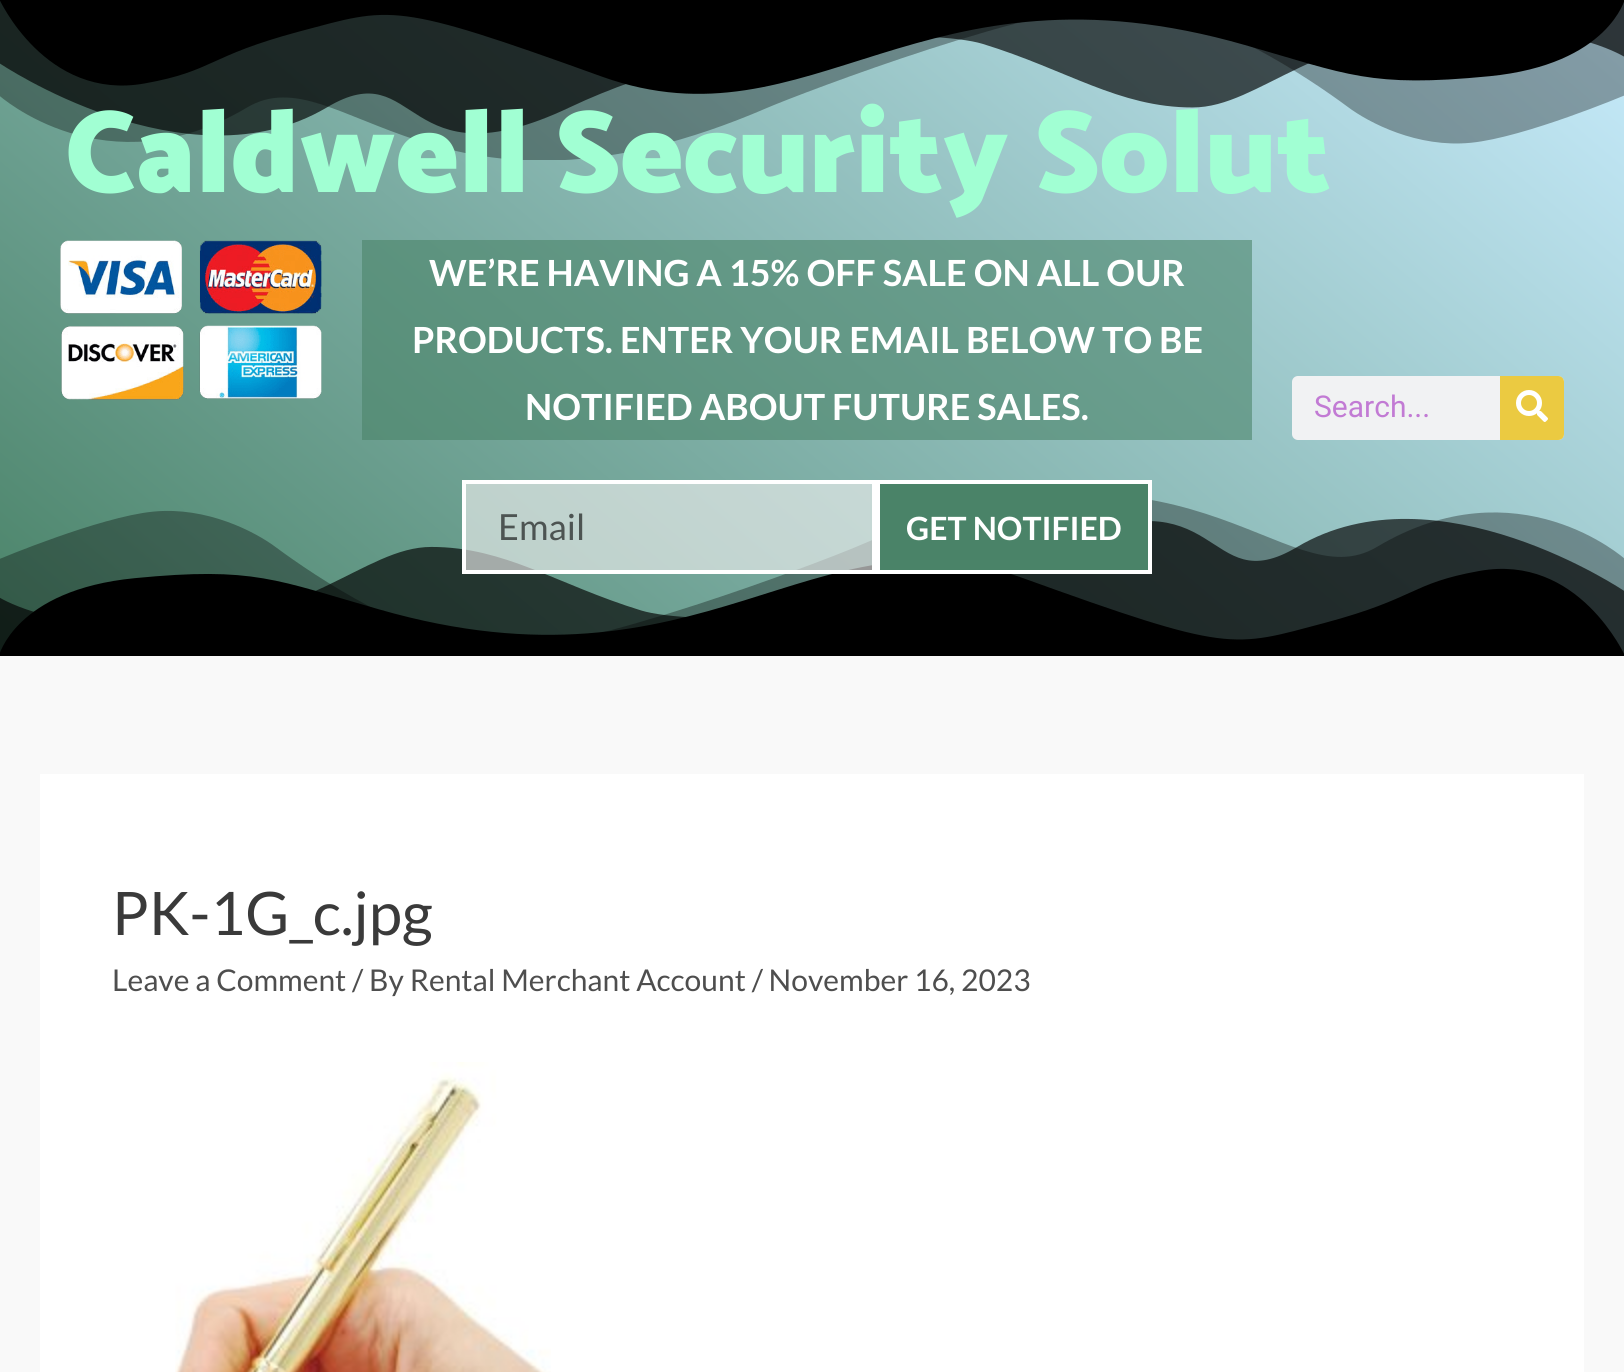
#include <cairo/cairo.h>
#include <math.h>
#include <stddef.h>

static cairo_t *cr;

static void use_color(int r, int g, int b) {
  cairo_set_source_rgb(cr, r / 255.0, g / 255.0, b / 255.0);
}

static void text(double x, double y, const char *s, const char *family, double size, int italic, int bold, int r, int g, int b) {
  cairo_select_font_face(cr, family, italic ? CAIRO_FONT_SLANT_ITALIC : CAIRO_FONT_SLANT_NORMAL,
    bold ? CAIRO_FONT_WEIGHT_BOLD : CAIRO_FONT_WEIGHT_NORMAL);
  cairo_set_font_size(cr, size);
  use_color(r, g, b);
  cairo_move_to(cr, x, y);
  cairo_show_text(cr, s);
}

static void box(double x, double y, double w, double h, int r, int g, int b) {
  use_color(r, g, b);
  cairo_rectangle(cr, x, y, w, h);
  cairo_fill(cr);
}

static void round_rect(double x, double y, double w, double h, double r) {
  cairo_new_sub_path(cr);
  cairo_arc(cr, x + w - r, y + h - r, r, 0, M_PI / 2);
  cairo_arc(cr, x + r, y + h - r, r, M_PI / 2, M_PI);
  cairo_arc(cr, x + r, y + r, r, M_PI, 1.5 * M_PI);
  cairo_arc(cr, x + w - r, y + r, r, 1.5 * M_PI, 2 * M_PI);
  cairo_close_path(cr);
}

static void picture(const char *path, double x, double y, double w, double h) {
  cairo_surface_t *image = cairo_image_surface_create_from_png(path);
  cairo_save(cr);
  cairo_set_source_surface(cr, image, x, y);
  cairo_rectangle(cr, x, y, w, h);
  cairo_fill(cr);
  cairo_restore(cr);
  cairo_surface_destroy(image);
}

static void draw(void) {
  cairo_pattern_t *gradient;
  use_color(249, 249, 249);
  cairo_paint(cr);
  gradient = cairo_pattern_create_linear(1309, -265, 315, 919);
  cairo_pattern_add_color_stop_rgba(gradient, 0, 0.78, 0.922, 0.988, 1);
  cairo_pattern_add_color_stop_rgba(gradient, 1, 0.29, 0.514, 0.408, 1);
  cairo_set_source(cr, gradient);
  cairo_pattern_destroy(gradient);
  cairo_rectangle(cr, 0, 0, 1624, 654);
  cairo_fill(cr);
  gradient = cairo_pattern_create_linear(1309, -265, 315, 919);
  cairo_pattern_add_color_stop_rgba(gradient, 0, 0.49, 0.682, 0.647, 1);
  cairo_pattern_add_color_stop_rgba(gradient, 1, 0.29, 0.514, 0.408, 1);
  cairo_set_source(cr, gradient);
  cairo_pattern_destroy(gradient);
  cairo_rectangle(cr, 362, 240, 890, 200);
  cairo_fill(cr);
  picture("img_01.png", 0, 0, 1624, 160);
  picture("img_02.png", 60, 240, 262, 160);
  picture("img_04.png", 0, 500, 1624, 156);
  cairo_set_source_rgba(cr, 0.937, 0.937, 0.937, 0.63);
  cairo_rectangle(cr, 464, 482, 410, 90);
  cairo_fill_preserve(cr);
  use_color(255, 255, 255);
  cairo_set_line_width(cr, 4);
  cairo_stroke(cr);
  use_color(74, 131, 104);
  cairo_rectangle(cr, 878, 482, 272, 90);
  cairo_fill_preserve(cr);
  use_color(255, 255, 255);
  cairo_stroke(cr);
  use_color(241, 242, 243);
  round_rect(1292, 376, 272, 64, 6);
  cairo_fill(cr);
  use_color(235, 202, 65);
  cairo_new_path(cr);
  cairo_move_to(cr, 1500, 376);
  cairo_line_to(cr, 1558, 376);
  cairo_curve_to(cr, 1561.5, 376, 1564, 378.5, 1564, 382);
  cairo_line_to(cr, 1564, 434);
  cairo_curve_to(cr, 1564, 437.5, 1561.5, 440, 1558, 440);
  cairo_line_to(cr, 1500, 440);
  cairo_close_path(cr);
  cairo_fill(cr);
  picture("img_03.png", 1516, 390, 32, 32);
  box(40, 774, 1544, 598, 255, 255, 255);
  picture("img_05.png", 175, 1062, 376, 310);
  text(65, 192, "Caldwell Security Solut", "Catamaran Black", 118, 0, 0, 161, 255, 211);
  text(429, 286, "WE’RE HAVING A 15% OFF SALE ON ALL OUR", "Lato", 36, 0, 1, 255, 255, 255);
  text(412, 353, "PRODUCTS. ENTER YOUR EMAIL BELOW TO BE", "Lato", 36, 0, 1, 255, 255, 255);
  text(525, 420, "NOTIFIED ABOUT FUTURE SALES.", "Lato", 36, 0, 1, 255, 255, 255);
  text(498, 540, "Email", "Lato", 36, 0, 0, 77, 84, 82);
  text(906, 540, "GET NOTIFIED", "Lato", 32, 0, 1, 255, 255, 255);
  text(1314, 417, "Search...", "Roboto", 30, 0, 0, 194, 123, 212);
  text(112, 935, "PK-1G_c.jpg", "Lato", 60, 0, 0, 58, 58, 58);
  text(112, 991, "Leave a Comment / By Rental Merchant Account / November 16, 2023", "Lato", 30, 0, 0, 78, 78, 78);
}

int main(void) {
  cairo_surface_t *surface = cairo_image_surface_create(CAIRO_FORMAT_RGB24, 1624, 1372);
  cr = cairo_create(surface);
  cairo_font_options_t *options = cairo_font_options_create();
  cairo_font_options_set_hint_metrics(options, CAIRO_HINT_METRICS_OFF);
  cairo_font_options_set_hint_style(options, CAIRO_HINT_STYLE_NONE);
  cairo_set_font_options(cr, options);
  cairo_set_miter_limit(cr, 4);
  draw();
  cairo_surface_write_to_png(surface, "out.png");
  cairo_font_options_destroy(options);
  cairo_destroy(cr);
  cairo_surface_destroy(surface);
  return 0;
}
